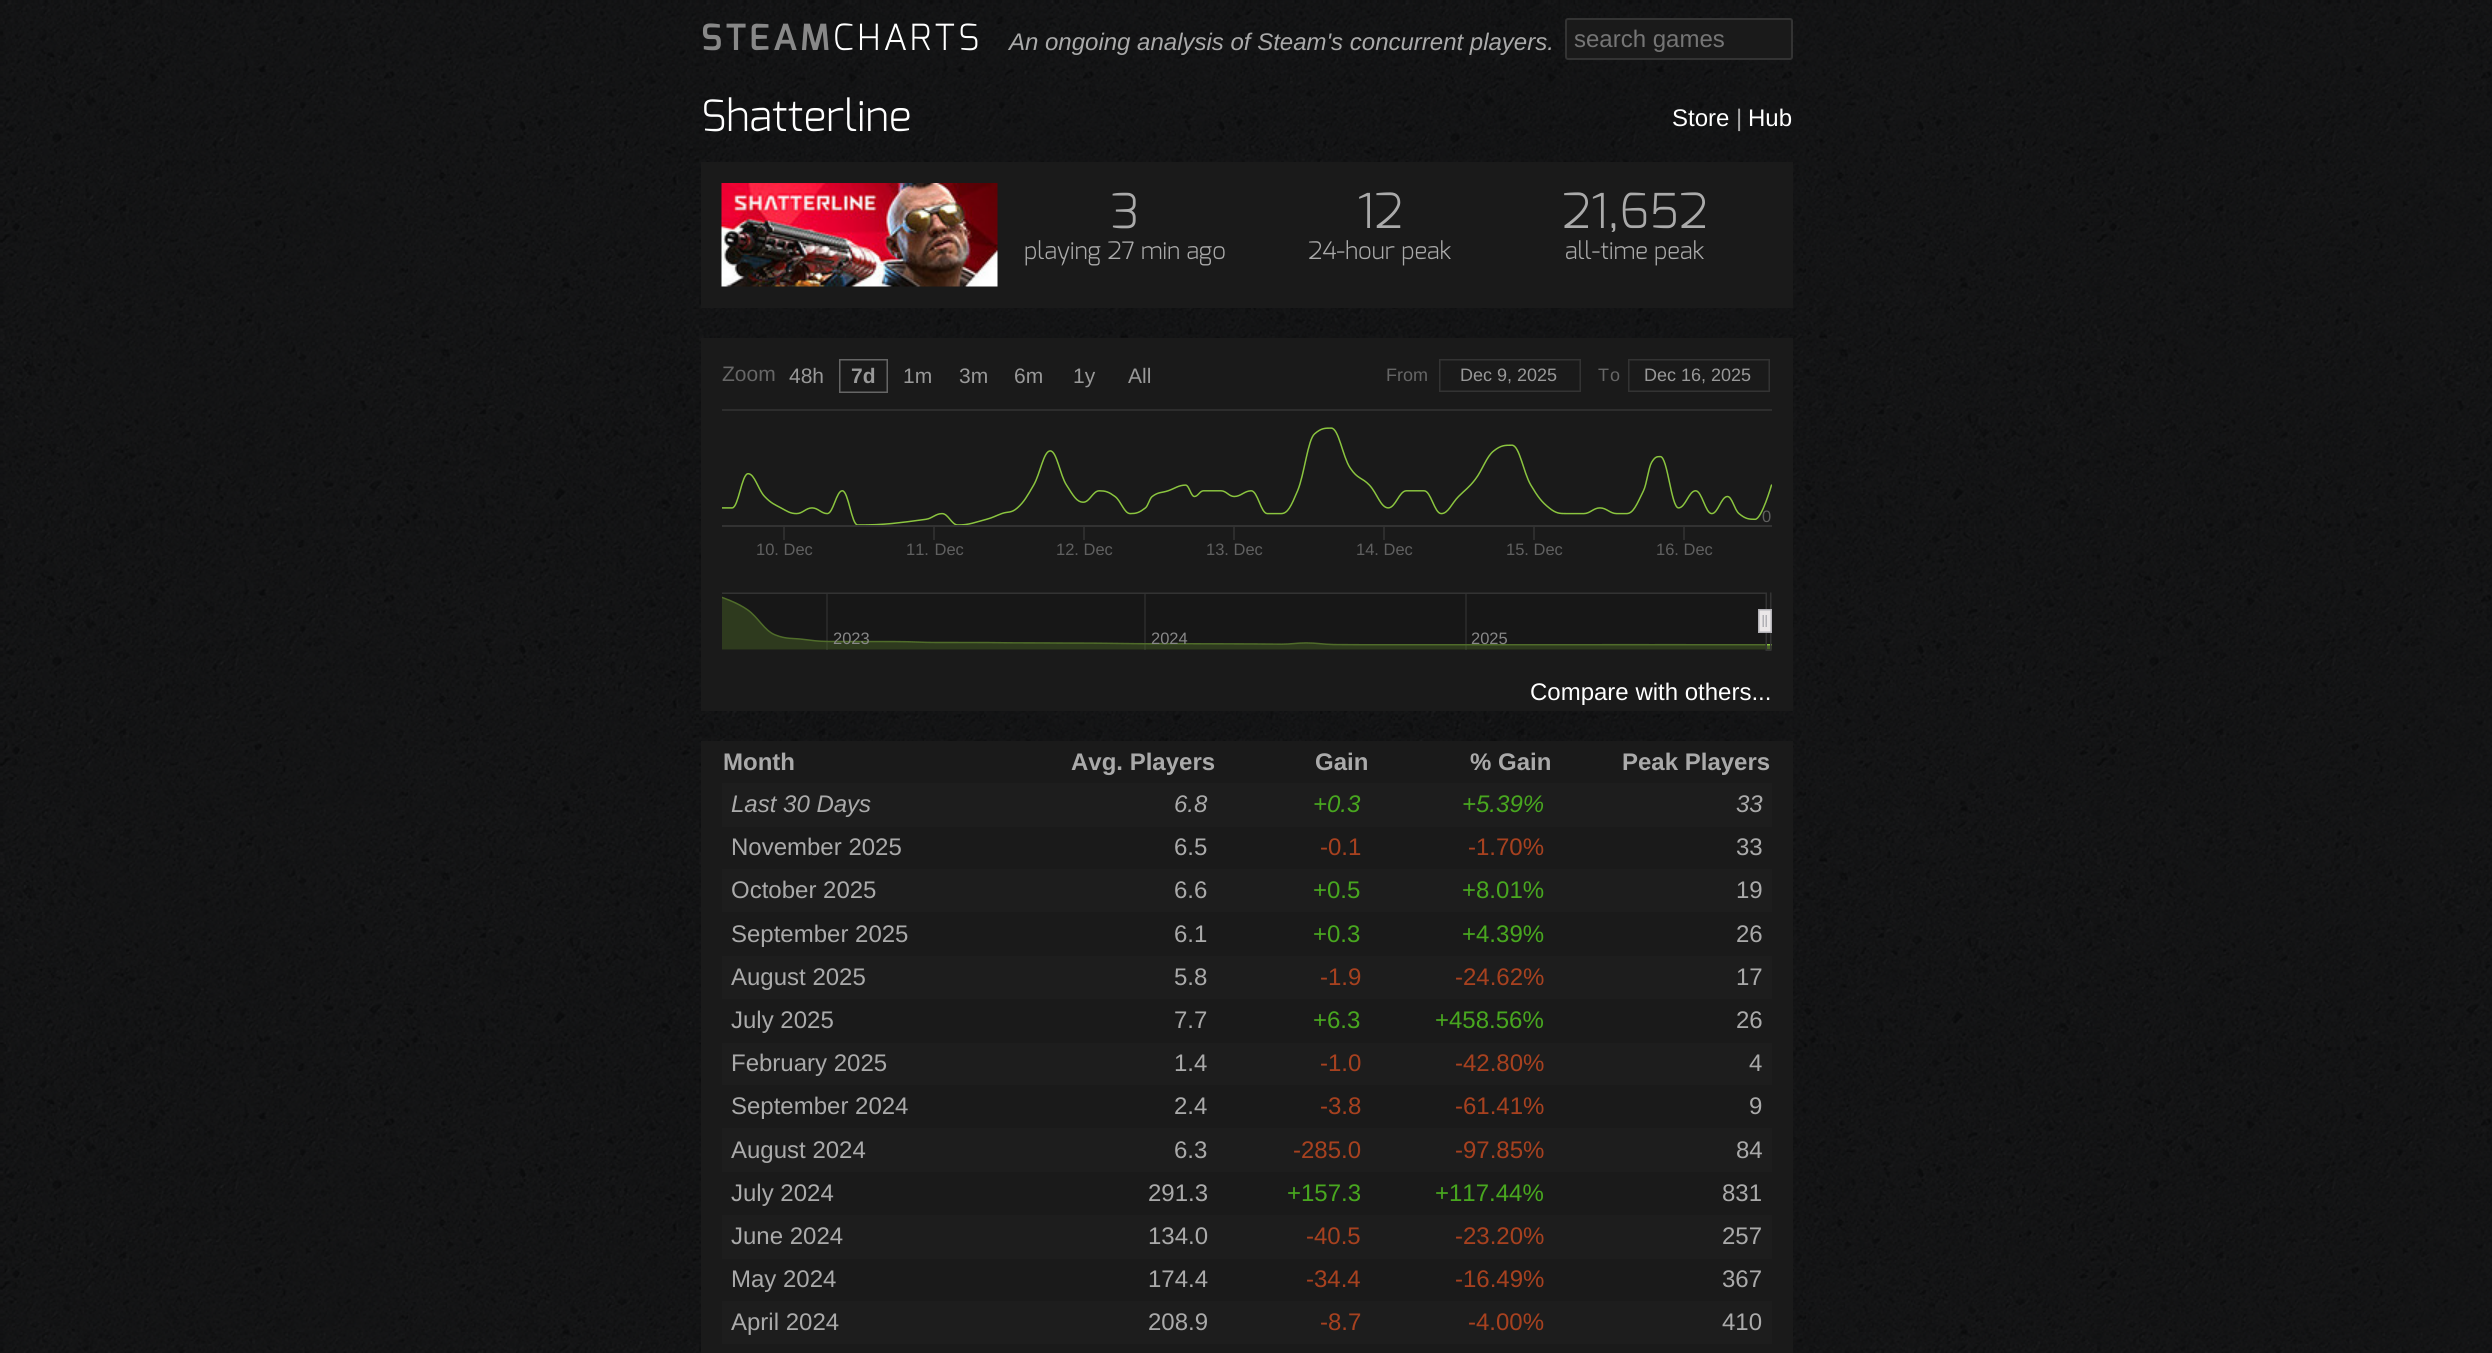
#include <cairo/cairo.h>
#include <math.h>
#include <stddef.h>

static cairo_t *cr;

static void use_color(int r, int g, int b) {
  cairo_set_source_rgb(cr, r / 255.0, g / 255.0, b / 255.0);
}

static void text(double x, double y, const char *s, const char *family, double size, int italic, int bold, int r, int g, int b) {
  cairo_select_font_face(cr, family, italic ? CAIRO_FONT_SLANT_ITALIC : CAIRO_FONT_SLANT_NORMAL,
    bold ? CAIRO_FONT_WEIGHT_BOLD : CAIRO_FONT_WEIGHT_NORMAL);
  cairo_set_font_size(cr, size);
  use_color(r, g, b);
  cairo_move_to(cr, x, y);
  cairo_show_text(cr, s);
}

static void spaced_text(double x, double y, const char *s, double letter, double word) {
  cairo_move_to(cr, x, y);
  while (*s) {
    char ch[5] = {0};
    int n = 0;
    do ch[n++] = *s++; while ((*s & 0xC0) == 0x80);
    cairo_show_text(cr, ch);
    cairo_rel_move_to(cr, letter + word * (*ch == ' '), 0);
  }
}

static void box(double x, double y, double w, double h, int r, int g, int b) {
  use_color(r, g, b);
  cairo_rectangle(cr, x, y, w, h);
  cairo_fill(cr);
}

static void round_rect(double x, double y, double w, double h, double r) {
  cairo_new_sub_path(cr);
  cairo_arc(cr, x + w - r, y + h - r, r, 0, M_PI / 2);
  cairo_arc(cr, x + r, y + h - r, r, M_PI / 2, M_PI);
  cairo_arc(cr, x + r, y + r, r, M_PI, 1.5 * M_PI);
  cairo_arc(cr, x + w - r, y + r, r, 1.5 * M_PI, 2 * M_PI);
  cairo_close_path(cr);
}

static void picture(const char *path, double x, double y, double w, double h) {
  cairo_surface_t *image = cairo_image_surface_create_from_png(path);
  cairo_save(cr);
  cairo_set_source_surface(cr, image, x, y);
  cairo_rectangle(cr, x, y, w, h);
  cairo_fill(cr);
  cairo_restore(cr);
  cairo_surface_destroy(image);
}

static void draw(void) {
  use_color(255, 255, 255);
  cairo_paint(cr);
  picture("img_01.png", 0, 0, 2492, 1353);
  use_color(26, 26, 26);
  round_rect(1566, 19, 226, 40, 2);
  cairo_fill_preserve(cr);
  use_color(51, 51, 51);
  cairo_stroke(cr);
  box(701, 162, 1092, 146, 26, 26, 26);
  picture("img_02.png", 721, 183, 277, 104);
  box(701, 338, 1092, 373, 26, 26, 26);
  box(701, 741, 1092, 612, 26, 26, 26);
  box(722, 783, 1050, 44, 29, 29, 29);
  box(722, 869, 1050, 43, 29, 29, 29);
  box(722, 956, 1050, 43, 29, 29, 29);
  box(722, 1043, 1050, 42, 29, 29, 29);
  box(722, 1128, 1050, 44, 29, 29, 29);
  box(722, 1215, 1050, 44, 29, 29, 29);
  box(722, 1301, 1050, 43, 29, 29, 29);
  cairo_select_font_face(cr, "Exo SemiBold", CAIRO_FONT_SLANT_NORMAL, CAIRO_FONT_WEIGHT_NORMAL);
  cairo_set_font_size(cr, 36);
  use_color(136, 136, 136);
  spaced_text(701, 50, "STEAM", 3, 0);
  cairo_select_font_face(cr, "Exo Light", CAIRO_FONT_SLANT_NORMAL, CAIRO_FONT_WEIGHT_NORMAL);
  use_color(255, 255, 255);
  spaced_text(833, 50, "CHARTS", 3, 0);
  text(1009, 50, "An ongoing analysis of Steam's concurrent players.", "Liberation Sans", 24, 1, 0, 170, 170, 170);
  text(1574, 47, "search games", "Liberation Sans", 24, 0, 0, 117, 117, 117);
  text(701, 131, "Shatterline", "Exo Light", 43, 0, 0, 255, 255, 255);
  text(1672, 126, "Store", "Liberation Sans", 24, 0, 0, 255, 255, 255);
  text(1736, 126, "|", "Liberation Sans", 24, 0, 0, 170, 170, 170);
  text(1748, 126, "Hub", "Liberation Sans", 24, 0, 0, 255, 255, 255);
  text(1111, 228, "3", "Exo Light", 48, 0, 0, 170, 170, 170);
  text(1024, 259, "playing 27 min ago", "Exo Light", 24, 0, 0, 170, 170, 170);
  text(1357, 228, "12", "Exo Light", 48, 0, 0, 170, 170, 170);
  text(1308, 259, "24-hour peak", "Exo Light", 24, 0, 0, 170, 170, 170);
  text(1562, 228, "21,652", "Exo Light", 48, 0, 0, 170, 170, 170);
  text(1565, 259, "all-time peak", "Exo Light", 24, 0, 0, 170, 170, 170);
  text(722, 381, "Zoom", "Liberation Sans", 21, 0, 0, 102, 102, 102);
  text(1386, 381, "From", "Liberation Sans", 18, 0, 0, 102, 102, 102);
  picture("img_03.png", 722, 359, 1050, 292);
  text(1128, 383, "All", "Liberation Sans", 21, 0, 0, 153, 153, 153);
  text(1073, 383, "1y", "Liberation Sans", 21, 0, 0, 153, 153, 153);
  text(1014, 383, "6m", "Liberation Sans", 21, 0, 0, 153, 153, 153);
  text(959, 383, "3m", "Liberation Sans", 21, 0, 0, 153, 153, 153);
  text(903, 383, "1m", "Liberation Sans", 21, 0, 0, 153, 153, 153);
  text(851, 383, "7d", "Liberation Sans", 21, 0, 1, 153, 153, 153);
  text(789, 383, "48h", "Liberation Sans", 21, 0, 0, 153, 153, 153);
  text(1460, 381, "Dec 9, 2025", "Liberation Sans", 18, 0, 0, 153, 153, 153);
  use_color(102, 102, 102);
  spaced_text(1598, 381, "To", 1, 0);
  text(1644, 381, "Dec 16, 2025", "Liberation Sans", 18, 0, 0, 153, 153, 153);
  text(1762, 522, "0", "Liberation Sans", 16.5, 0, 0, 96, 96, 96);
  text(756, 555, "10. Dec", "Liberation Sans", 16.5, 0, 0, 96, 96, 96);
  spaced_text(906, 555, "11. Dec", 0, 1);
  text(1056, 555, "12. Dec", "Liberation Sans", 16.5, 0, 0, 96, 96, 96);
  text(1206, 555, "13. Dec", "Liberation Sans", 16.5, 0, 0, 96, 96, 96);
  text(1356, 555, "14. Dec", "Liberation Sans", 16.5, 0, 0, 96, 96, 96);
  text(1506, 555, "15. Dec", "Liberation Sans", 16.5, 0, 0, 96, 96, 96);
  text(1656, 555, "16. Dec", "Liberation Sans", 16.5, 0, 0, 96, 96, 96);
  text(833, 644, "2023", "Liberation Sans", 16.5, 0, 0, 136, 136, 136);
  text(1151, 644, "2024", "Liberation Sans", 16.5, 0, 0, 136, 136, 136);
  text(1471, 644, "2025", "Liberation Sans", 16.5, 0, 0, 136, 136, 136);
  text(1530, 700, "Compare with others...", "Liberation Sans", 24, 0, 0, 255, 255, 255);
  text(723, 770, "Month", "Liberation Sans", 24, 0, 1, 170, 170, 170);
  text(1071, 770, "Avg. Players", "Liberation Sans", 24, 0, 1, 170, 170, 170);
  text(1315, 770, "Gain", "Liberation Sans", 24, 0, 1, 170, 170, 170);
  text(1470, 770, "% Gain", "Liberation Sans", 24, 0, 1, 170, 170, 170);
  text(1622, 770, "Peak Players", "Liberation Sans", 24, 0, 1, 170, 170, 170);
  text(731, 812, "Last 30 Days", "Liberation Sans", 24, 1, 0, 170, 170, 170);
  text(1174, 812, "6.8", "Liberation Sans", 24, 1, 0, 170, 170, 170);
  text(1313, 812, "+0.3", "Liberation Sans", 24, 1, 0, 72, 167, 31);
  text(1462, 812, "+5.39%", "Liberation Sans", 24, 1, 0, 72, 167, 31);
  text(1736, 812, "33", "Liberation Sans", 24, 1, 0, 170, 170, 170);
  text(731, 855, "November 2025", "Liberation Sans", 24, 0, 0, 170, 170, 170);
  text(1174, 855, "6.5", "Liberation Sans", 24, 0, 0, 170, 170, 170);
  text(1320, 855, "-0.1", "Liberation Sans", 24, 0, 0, 167, 65, 31);
  text(1468, 855, "-1.70%", "Liberation Sans", 24, 0, 0, 167, 65, 31);
  text(1736, 855, "33", "Liberation Sans", 24, 0, 0, 170, 170, 170);
  text(731, 898, "October 2025", "Liberation Sans", 24, 0, 0, 170, 170, 170);
  text(1174, 898, "6.6", "Liberation Sans", 24, 0, 0, 170, 170, 170);
  text(1313, 898, "+0.5", "Liberation Sans", 24, 0, 0, 72, 167, 31);
  text(1462, 898, "+8.01%", "Liberation Sans", 24, 0, 0, 72, 167, 31);
  text(1736, 898, "19", "Liberation Sans", 24, 0, 0, 170, 170, 170);
  text(731, 942, "September 2025", "Liberation Sans", 24, 0, 0, 170, 170, 170);
  text(1174, 942, "6.1", "Liberation Sans", 24, 0, 0, 170, 170, 170);
  text(1313, 942, "+0.3", "Liberation Sans", 24, 0, 0, 72, 167, 31);
  text(1462, 942, "+4.39%", "Liberation Sans", 24, 0, 0, 72, 167, 31);
  text(1736, 942, "26", "Liberation Sans", 24, 0, 0, 170, 170, 170);
  text(731, 985, "August 2025", "Liberation Sans", 24, 0, 0, 170, 170, 170);
  text(1174, 985, "5.8", "Liberation Sans", 24, 0, 0, 170, 170, 170);
  text(1320, 985, "-1.9", "Liberation Sans", 24, 0, 0, 167, 65, 31);
  text(1455, 985, "-24.62%", "Liberation Sans", 24, 0, 0, 167, 65, 31);
  text(1736, 985, "17", "Liberation Sans", 24, 0, 0, 170, 170, 170);
  text(731, 1028, "July 2025", "Liberation Sans", 24, 0, 0, 170, 170, 170);
  text(1174, 1028, "7.7", "Liberation Sans", 24, 0, 0, 170, 170, 170);
  text(1313, 1028, "+6.3", "Liberation Sans", 24, 0, 0, 72, 167, 31);
  text(1435, 1028, "+458.56%", "Liberation Sans", 24, 0, 0, 72, 167, 31);
  text(1736, 1028, "26", "Liberation Sans", 24, 0, 0, 170, 170, 170);
  text(731, 1071, "February 2025", "Liberation Sans", 24, 0, 0, 170, 170, 170);
  text(1174, 1071, "1.4", "Liberation Sans", 24, 0, 0, 170, 170, 170);
  text(1320, 1071, "-1.0", "Liberation Sans", 24, 0, 0, 167, 65, 31);
  text(1455, 1071, "-42.80%", "Liberation Sans", 24, 0, 0, 167, 65, 31);
  text(1749, 1071, "4", "Liberation Sans", 24, 0, 0, 170, 170, 170);
  text(731, 1114, "September 2024", "Liberation Sans", 24, 0, 0, 170, 170, 170);
  text(1174, 1114, "2.4", "Liberation Sans", 24, 0, 0, 170, 170, 170);
  text(1320, 1114, "-3.8", "Liberation Sans", 24, 0, 0, 167, 65, 31);
  text(1455, 1114, "-61.41%", "Liberation Sans", 24, 0, 0, 167, 65, 31);
  text(1749, 1114, "9", "Liberation Sans", 24, 0, 0, 170, 170, 170);
  text(731, 1158, "August 2024", "Liberation Sans", 24, 0, 0, 170, 170, 170);
  text(1174, 1158, "6.3", "Liberation Sans", 24, 0, 0, 170, 170, 170);
  text(1293, 1158, "-285.0", "Liberation Sans", 24, 0, 0, 167, 65, 31);
  text(1455, 1158, "-97.85%", "Liberation Sans", 24, 0, 0, 167, 65, 31);
  text(1736, 1158, "84", "Liberation Sans", 24, 0, 0, 170, 170, 170);
  text(731, 1201, "July 2024", "Liberation Sans", 24, 0, 0, 170, 170, 170);
  text(1148, 1201, "291.3", "Liberation Sans", 24, 0, 0, 170, 170, 170);
  text(1287, 1201, "+157.3", "Liberation Sans", 24, 0, 0, 72, 167, 31);
  text(1435, 1201, "+117.44%", "Liberation Sans", 24, 0, 0, 72, 167, 31);
  text(1722, 1201, "831", "Liberation Sans", 24, 0, 0, 170, 170, 170);
  text(731, 1244, "June 2024", "Liberation Sans", 24, 0, 0, 170, 170, 170);
  text(1148, 1244, "134.0", "Liberation Sans", 24, 0, 0, 170, 170, 170);
  text(1306, 1244, "-40.5", "Liberation Sans", 24, 0, 0, 167, 65, 31);
  text(1455, 1244, "-23.20%", "Liberation Sans", 24, 0, 0, 167, 65, 31);
  text(1722, 1244, "257", "Liberation Sans", 24, 0, 0, 170, 170, 170);
  text(731, 1287, "May 2024", "Liberation Sans", 24, 0, 0, 170, 170, 170);
  text(1148, 1287, "174.4", "Liberation Sans", 24, 0, 0, 170, 170, 170);
  text(1306, 1287, "-34.4", "Liberation Sans", 24, 0, 0, 167, 65, 31);
  text(1455, 1287, "-16.49%", "Liberation Sans", 24, 0, 0, 167, 65, 31);
  text(1722, 1287, "367", "Liberation Sans", 24, 0, 0, 170, 170, 170);
  text(731, 1330, "April 2024", "Liberation Sans", 24, 0, 0, 170, 170, 170);
  text(1148, 1330, "208.9", "Liberation Sans", 24, 0, 0, 170, 170, 170);
  text(1320, 1330, "-8.7", "Liberation Sans", 24, 0, 0, 167, 65, 31);
  text(1468, 1330, "-4.00%", "Liberation Sans", 24, 0, 0, 167, 65, 31);
  text(1722, 1330, "410", "Liberation Sans", 24, 0, 0, 170, 170, 170);
}

int main(void) {
  cairo_surface_t *surface = cairo_image_surface_create(CAIRO_FORMAT_RGB24, 2492, 1353);
  cr = cairo_create(surface);
  cairo_font_options_t *options = cairo_font_options_create();
  cairo_font_options_set_hint_metrics(options, CAIRO_HINT_METRICS_OFF);
  cairo_font_options_set_hint_style(options, CAIRO_HINT_STYLE_NONE);
  cairo_set_font_options(cr, options);
  cairo_set_miter_limit(cr, 4);
  draw();
  cairo_surface_write_to_png(surface, "out.png");
  cairo_font_options_destroy(options);
  cairo_destroy(cr);
  cairo_surface_destroy(surface);
  return 0;
}
